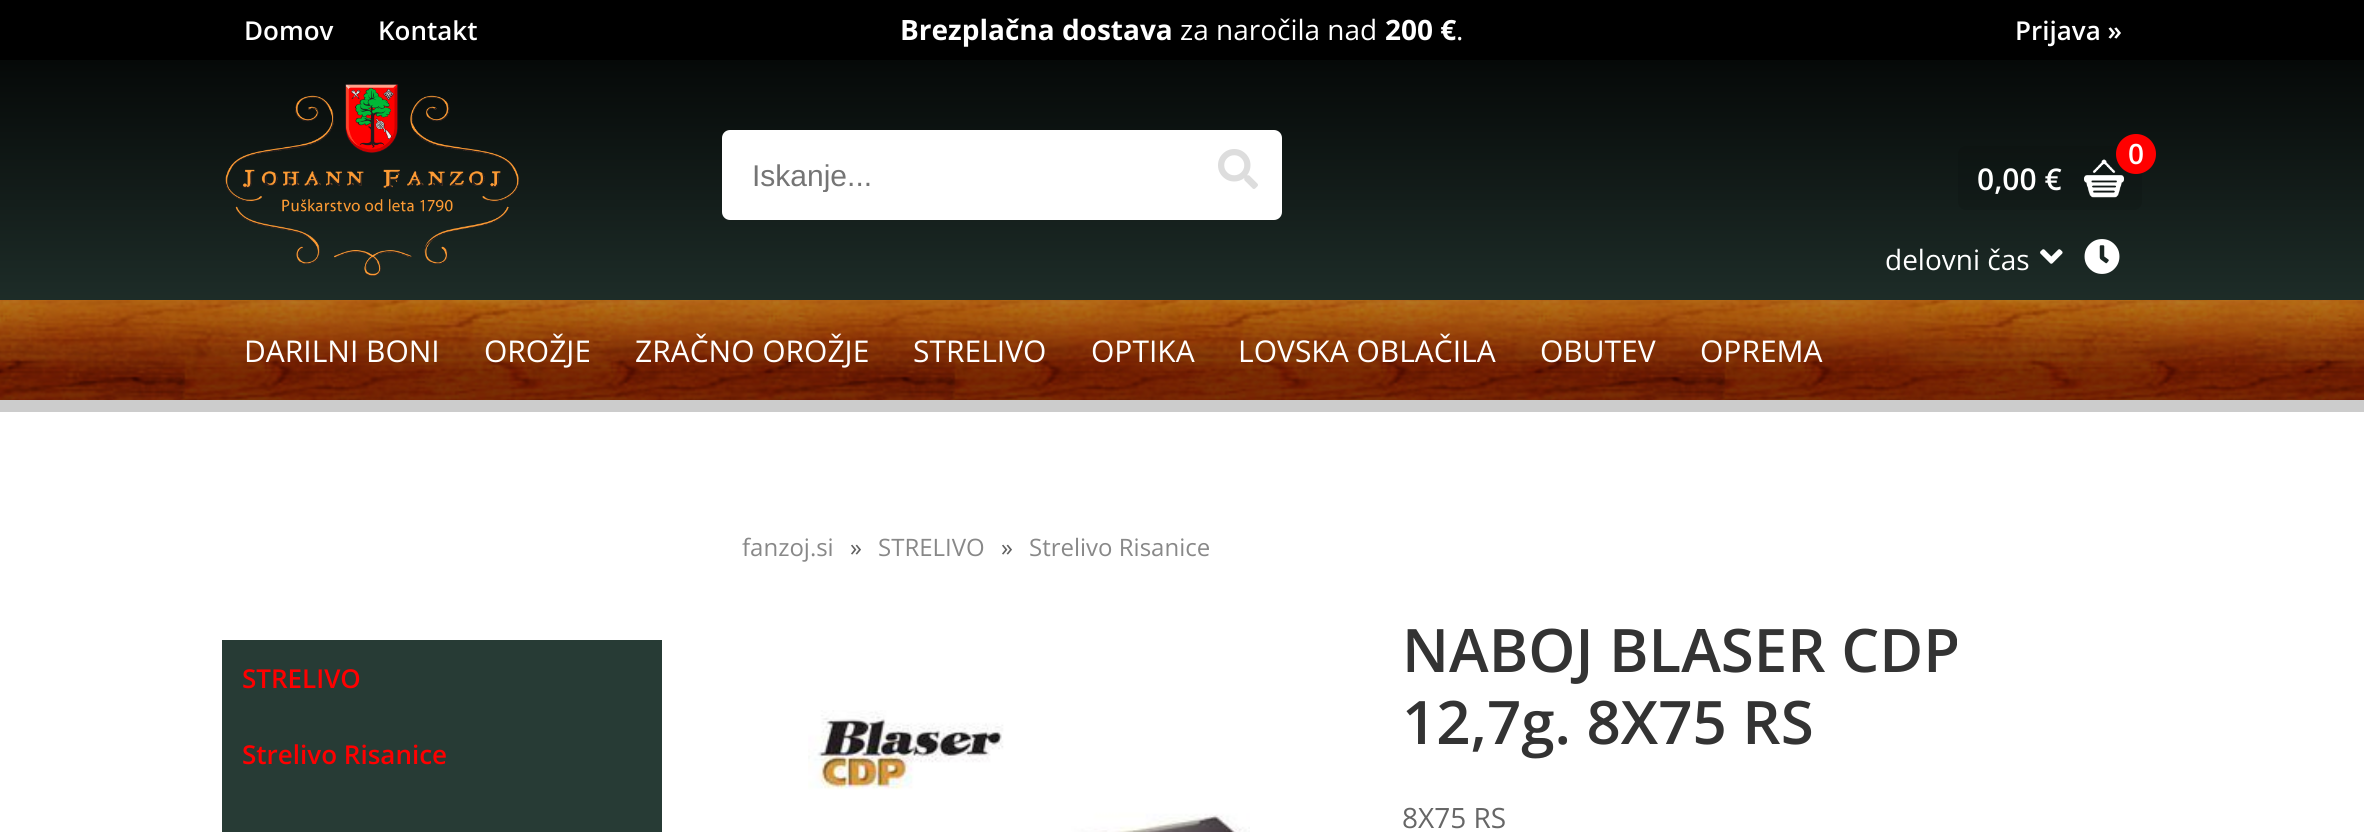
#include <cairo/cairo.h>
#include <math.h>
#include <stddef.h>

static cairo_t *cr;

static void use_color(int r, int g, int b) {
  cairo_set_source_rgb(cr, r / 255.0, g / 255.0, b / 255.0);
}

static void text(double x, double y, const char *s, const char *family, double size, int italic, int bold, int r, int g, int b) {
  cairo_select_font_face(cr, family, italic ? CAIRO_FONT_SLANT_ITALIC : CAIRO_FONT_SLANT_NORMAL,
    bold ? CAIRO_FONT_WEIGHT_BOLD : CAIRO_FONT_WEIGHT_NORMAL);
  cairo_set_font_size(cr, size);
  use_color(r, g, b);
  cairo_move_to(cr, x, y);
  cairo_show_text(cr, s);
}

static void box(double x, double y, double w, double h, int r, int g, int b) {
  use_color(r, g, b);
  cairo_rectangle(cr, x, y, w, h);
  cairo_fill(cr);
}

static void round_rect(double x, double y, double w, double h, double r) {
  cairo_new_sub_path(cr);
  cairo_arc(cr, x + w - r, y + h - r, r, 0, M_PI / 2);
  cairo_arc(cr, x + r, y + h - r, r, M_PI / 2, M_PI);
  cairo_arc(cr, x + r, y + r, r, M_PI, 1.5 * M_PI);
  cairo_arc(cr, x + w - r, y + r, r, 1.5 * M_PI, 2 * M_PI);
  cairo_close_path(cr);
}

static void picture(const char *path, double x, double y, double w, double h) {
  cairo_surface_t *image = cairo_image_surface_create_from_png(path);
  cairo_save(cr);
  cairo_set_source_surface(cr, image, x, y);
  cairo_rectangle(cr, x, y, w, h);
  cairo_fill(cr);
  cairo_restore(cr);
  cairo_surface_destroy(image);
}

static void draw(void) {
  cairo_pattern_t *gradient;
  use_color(255, 255, 255);
  cairo_paint(cr);
  gradient = cairo_pattern_create_linear(1182, 0, 1182, 400);
  cairo_pattern_add_color_stop_rgba(gradient, 0, 0, 0, 0, 1);
  cairo_pattern_add_color_stop_rgba(gradient, 1, 0.153, 0.231, 0.208, 1);
  cairo_set_source(cr, gradient);
  cairo_pattern_destroy(gradient);
  cairo_rectangle(cr, 0, 60, 2364, 240);
  cairo_fill(cr);
  box(0, 400, 2364, 12, 204, 204, 204);
  box(0, 0, 2364, 60, 0, 0, 0);
  picture("img_01.png", 225, 84, 294, 192);
  use_color(255, 255, 255);
  round_rect(722, 130, 560, 90, 8);
  cairo_fill(cr);
  picture("img_02.png", 1218, 149, 40, 40);
  cairo_set_source_rgba(cr, 0, 0, 0, 0.1);
  round_rect(1958, 146, 184, 64, 8);
  cairo_fill(cr);
  use_color(255, 0, 0);
  cairo_arc(cr, 2136, 154, 20, 0, 2 * M_PI);
  cairo_fill(cr);
  picture("img_03.png", 2084, 159, 40, 39);
  picture("img_04.png", 2040, 249, 23, 15);
  picture("img_05.png", 2084, 239, 36, 35);
  picture("img_06.png", 0, 300, 2364, 100);
  box(222, 640, 440, 192, 39, 59, 53);
  picture("img_07.png", 808, 710, 442, 122);
  text(244, 40, "Domov", "Open Sans SemiBold", 26, 0, 0, 255, 255, 255);
  text(378, 40, "Kontakt", "Open Sans SemiBold", 26, 0, 0, 255, 255, 255);
  text(900, 40, "Brezplačna dostava", "Open Sans", 28, 0, 1, 255, 255, 255);
  text(1180, 40, "za naročila nad", "Open Sans", 28, 0, 0, 255, 255, 255);
  text(1385, 40, "200 €", "Open Sans", 28, 0, 1, 255, 255, 255);
  text(1456, 40, ".", "Open Sans", 28, 0, 0, 255, 255, 255);
  text(2015, 40, "Prijava »", "Open Sans SemiBold", 26, 0, 0, 255, 255, 255);
  cairo_save(cr);
  cairo_rectangle(cr, 752, 158, 430, 34);
  cairo_clip(cr);
  text(752, 186, "Iskanje...", "Liberation Sans", 30, 0, 0, 117, 117, 117);
  cairo_restore(cr);
  text(2128, 164, "0", "Open Sans SemiBold", 28, 0, 0, 255, 255, 255);
  text(1977, 190, "0,00 €", "Open Sans SemiBold", 30, 0, 0, 255, 255, 255);
  text(1885, 270, "delovni čas", "Open Sans", 28, 0, 0, 255, 255, 255);
  text(244, 362, "DARILNI BONI", "Open Sans", 30, 0, 0, 255, 255, 255);
  text(484, 362, "OROŽJE", "Open Sans", 30, 0, 0, 255, 255, 255);
  text(635, 362, "ZRAČNO OROŽJE", "Open Sans", 30, 0, 0, 255, 255, 255);
  text(913, 362, "STRELIVO", "Open Sans", 30, 0, 0, 255, 255, 255);
  text(1091, 362, "OPTIKA", "Open Sans", 30, 0, 0, 255, 255, 255);
  text(1238, 362, "LOVSKA OBLAČILA", "Open Sans", 30, 0, 0, 255, 255, 255);
  text(1540, 362, "OBUTEV", "Open Sans", 30, 0, 0, 255, 255, 255);
  text(1700, 362, "OPREMA", "Open Sans", 30, 0, 0, 255, 255, 255);
  text(242, 688, "STRELIVO", "Open Sans SemiBold", 26, 0, 0, 255, 0, 0);
  text(242, 764, "Strelivo Risanice", "Open Sans SemiBold", 26, 0, 0, 255, 0, 0);
  text(742, 556, "fanzoj.si", "Open Sans", 24, 0, 0, 136, 136, 136);
  text(850, 556, "»", "Open Sans", 24, 0, 0, 96, 96, 96);
  text(878, 556, "STRELIVO", "Open Sans", 24, 0, 0, 136, 136, 136);
  text(1001, 556, "»", "Open Sans", 24, 0, 0, 96, 96, 96);
  text(1029, 556, "Strelivo Risanice", "Open Sans", 24, 0, 0, 136, 136, 136);
  text(1402, 672, "NABOJ BLASER CDP", "Open Sans SemiBold", 60, 0, 0, 51, 51, 51);
  text(1402, 744, "12,7g. 8X75 RS", "Open Sans SemiBold", 60, 0, 0, 51, 51, 51);
  text(1402, 828, "8X75 RS", "Open Sans", 28, 0, 0, 102, 102, 102);
}

int main(void) {
  cairo_surface_t *surface = cairo_image_surface_create(CAIRO_FORMAT_RGB24, 2364, 832);
  cr = cairo_create(surface);
  cairo_font_options_t *options = cairo_font_options_create();
  cairo_font_options_set_hint_metrics(options, CAIRO_HINT_METRICS_OFF);
  cairo_font_options_set_hint_style(options, CAIRO_HINT_STYLE_NONE);
  cairo_set_font_options(cr, options);
  cairo_set_miter_limit(cr, 4);
  draw();
  cairo_surface_write_to_png(surface, "out.png");
  cairo_font_options_destroy(options);
  cairo_destroy(cr);
  cairo_surface_destroy(surface);
  return 0;
}
